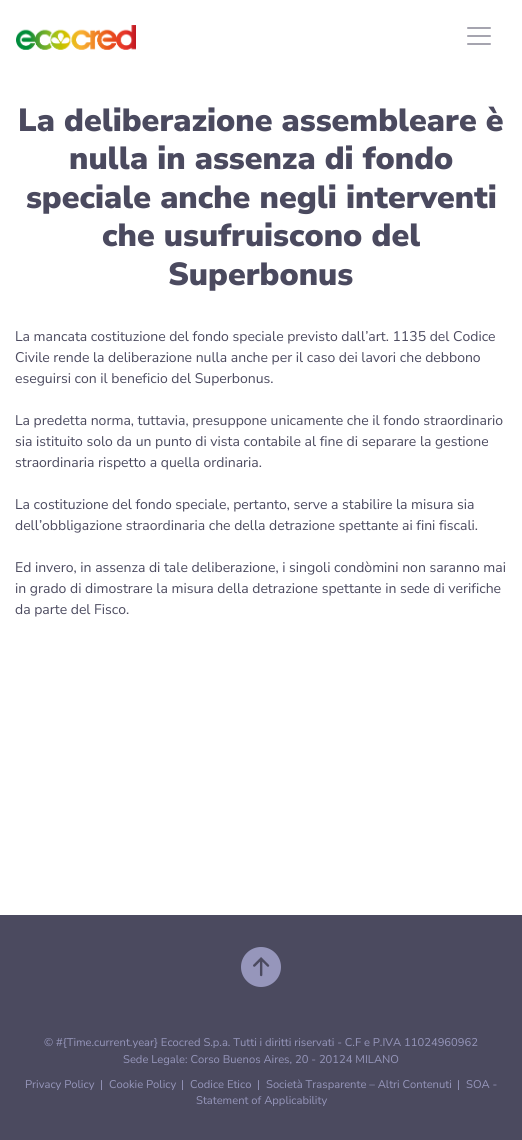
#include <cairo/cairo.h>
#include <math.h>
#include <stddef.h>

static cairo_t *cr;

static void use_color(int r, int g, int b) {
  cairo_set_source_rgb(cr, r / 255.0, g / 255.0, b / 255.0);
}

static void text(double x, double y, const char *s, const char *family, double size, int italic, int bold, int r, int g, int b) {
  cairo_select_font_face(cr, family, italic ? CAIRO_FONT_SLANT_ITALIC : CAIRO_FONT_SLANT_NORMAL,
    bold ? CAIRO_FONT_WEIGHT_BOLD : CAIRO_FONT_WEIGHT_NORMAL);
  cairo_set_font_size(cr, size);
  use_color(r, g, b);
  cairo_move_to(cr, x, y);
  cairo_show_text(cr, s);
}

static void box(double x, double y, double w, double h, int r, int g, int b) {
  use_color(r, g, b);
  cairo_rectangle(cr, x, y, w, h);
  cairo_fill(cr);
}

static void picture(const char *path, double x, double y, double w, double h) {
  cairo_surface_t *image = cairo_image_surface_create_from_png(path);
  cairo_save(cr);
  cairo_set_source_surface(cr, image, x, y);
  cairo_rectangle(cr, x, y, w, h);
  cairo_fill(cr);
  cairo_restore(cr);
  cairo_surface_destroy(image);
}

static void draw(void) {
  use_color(255, 255, 255);
  cairo_paint(cr);
  picture("img_01.png", 16, 25, 120, 25);
  picture("img_02.png", 467, 27, 24, 18);
  box(0, 915, 522, 225, 75, 74, 95);
  picture("img_03.png", 241, 947, 40, 40);
  text(18, 131, "La deliberazione assembleare è", "Nunito Sans Black", 32, 0, 0, 75, 74, 95);
  text(69, 169, "nulla in assenza di fondo", "Nunito Sans Black", 32, 0, 0, 75, 74, 95);
  text(26, 208, "speciale anche negli interventi", "Nunito Sans Black", 32, 0, 0, 75, 74, 95);
  text(102, 246, "che usufruiscono del", "Nunito Sans Black", 32, 0, 0, 75, 74, 95);
  text(168, 285, "Superbonus", "Nunito Sans Black", 32, 0, 0, 75, 74, 95);
  text(15, 341, "La mancata costituzione del fondo speciale previsto dall’art. 1135 del Codice", "Nunito Sans", 14, 0, 0, 75, 74, 95);
  text(15, 362, "Civile rende la deliberazione nulla anche per il caso dei lavori che debbono", "Nunito Sans", 14, 0, 0, 75, 74, 95);
  text(15, 383, "eseguirsi con il beneficio del Superbonus.", "Nunito Sans", 14, 0, 0, 75, 74, 95);
  text(15, 425, "La predetta norma, tuttavia, presuppone unicamente che il fondo straordinario", "Nunito Sans", 14, 0, 0, 75, 74, 95);
  text(15, 446, "sia istituito solo da un punto di vista contabile al fine di separare la gestione", "Nunito Sans", 14, 0, 0, 75, 74, 95);
  text(15, 467, "straordinaria rispetto a quella ordinaria.", "Nunito Sans", 14, 0, 0, 75, 74, 95);
  text(15, 509, "La costituzione del fondo speciale, pertanto, serve a stabilire la misura sia", "Nunito Sans", 14, 0, 0, 75, 74, 95);
  text(15, 530, "dell’obbligazione straordinaria che della detrazione spettante ai fini fiscali.", "Nunito Sans", 14, 0, 0, 75, 74, 95);
  text(15, 572, "Ed invero, in assenza di tale deliberazione, i singoli condòmini non saranno mai", "Nunito Sans", 14, 0, 0, 75, 74, 95);
  text(15, 593, "in grado di dimostrare la misura della detrazione spettante in sede di verifiche", "Nunito Sans", 14, 0, 0, 75, 74, 95);
  text(15, 614, "da parte del Fisco.", "Nunito Sans", 14, 0, 0, 75, 74, 95);
  text(44, 1046, "© #{Time.current.year} Ecocred S.p.a. Tutti i diritti riservati - C.F e P.IVA 11024960962", "Nunito Sans", 11.2, 0, 0, 150, 150, 187);
  text(123, 1063, "Sede Legale: Corso Buenos Aires, 20 - 20124 MILANO", "Nunito Sans", 11.2, 0, 0, 150, 150, 187);
  text(25, 1088, "Privacy Policy", "Nunito Sans", 11.2, 0, 0, 150, 150, 187);
  text(100, 1088, "|", "Nunito Sans", 11.2, 0, 0, 150, 150, 187);
  text(109, 1088, "Cookie Policy", "Nunito Sans", 11.2, 0, 0, 150, 150, 187);
  text(181, 1088, "|", "Nunito Sans", 11.2, 0, 0, 150, 150, 187);
  text(190, 1088, "Codice Etico", "Nunito Sans", 11.2, 0, 0, 150, 150, 187);
  text(257, 1088, "|", "Nunito Sans", 11.2, 0, 0, 150, 150, 187);
  text(266, 1088, "Società Trasparente – Altri Contenuti", "Nunito Sans", 11.2, 0, 0, 150, 150, 187);
  text(457, 1088, "|", "Nunito Sans", 11.2, 0, 0, 150, 150, 187);
  text(466, 1088, "SOA -", "Nunito Sans", 11.2, 0, 0, 150, 150, 187);
  text(196, 1104, "Statement of Applicability", "Nunito Sans", 11.2, 0, 0, 150, 150, 187);
}

int main(void) {
  cairo_surface_t *surface = cairo_image_surface_create(CAIRO_FORMAT_RGB24, 522, 1140);
  cr = cairo_create(surface);
  cairo_font_options_t *options = cairo_font_options_create();
  cairo_font_options_set_hint_metrics(options, CAIRO_HINT_METRICS_OFF);
  cairo_font_options_set_hint_style(options, CAIRO_HINT_STYLE_NONE);
  cairo_set_font_options(cr, options);
  cairo_set_miter_limit(cr, 4);
  draw();
  cairo_surface_write_to_png(surface, "out.png");
  cairo_font_options_destroy(options);
  cairo_destroy(cr);
  cairo_surface_destroy(surface);
  return 0;
}
